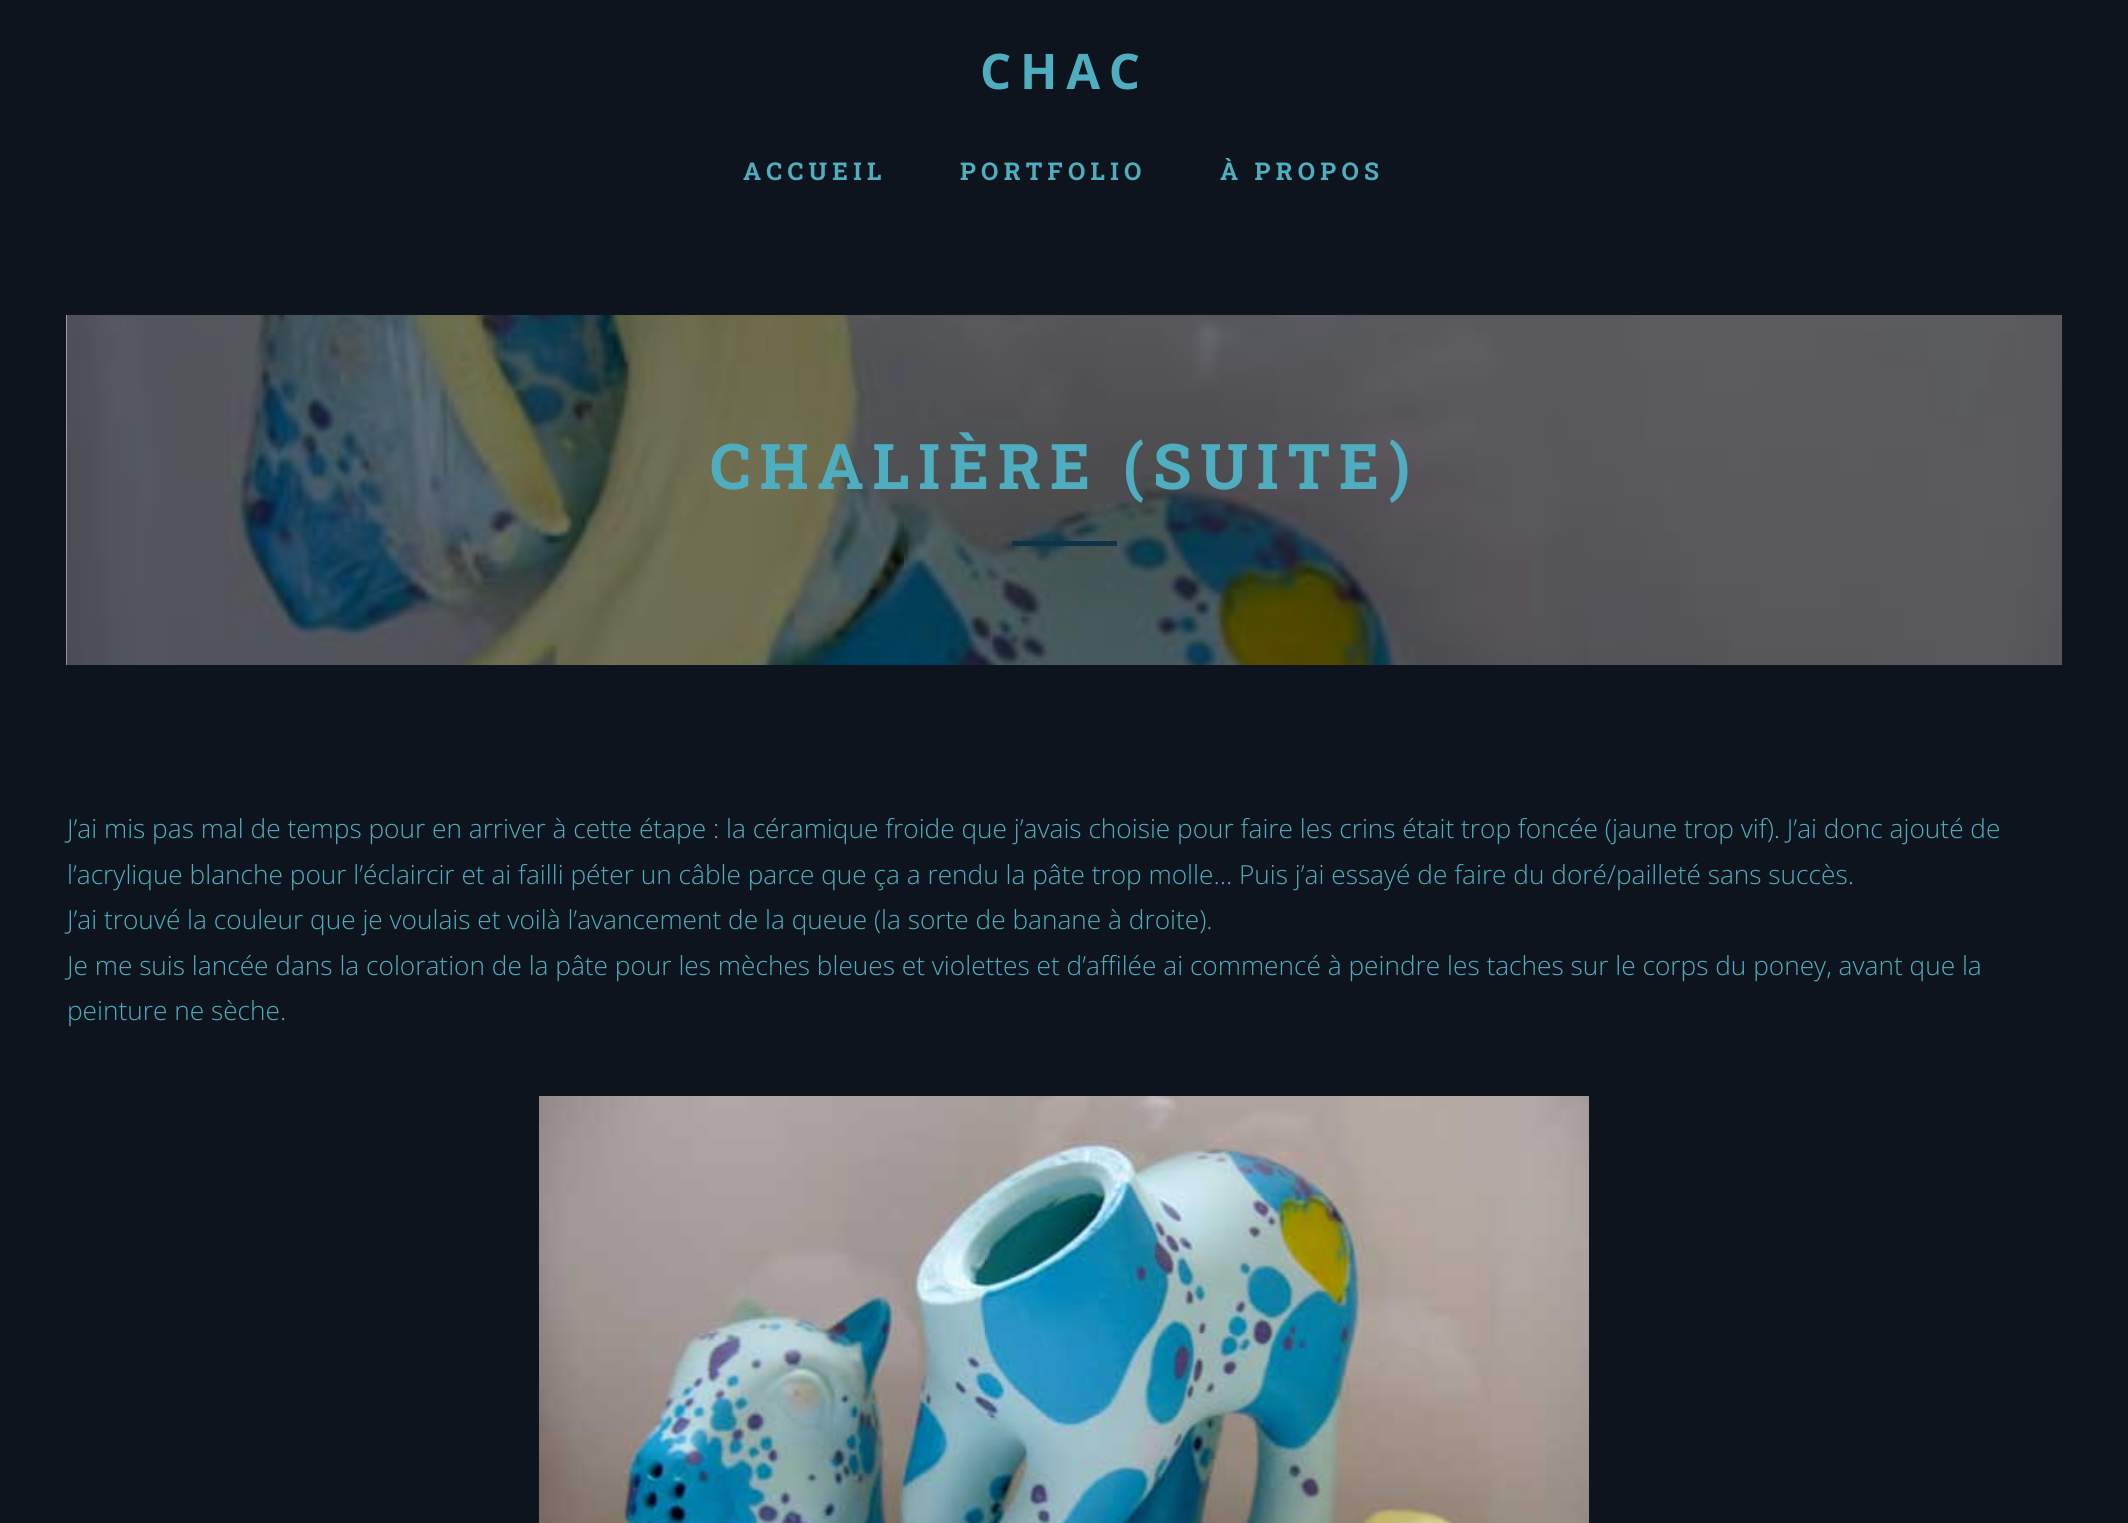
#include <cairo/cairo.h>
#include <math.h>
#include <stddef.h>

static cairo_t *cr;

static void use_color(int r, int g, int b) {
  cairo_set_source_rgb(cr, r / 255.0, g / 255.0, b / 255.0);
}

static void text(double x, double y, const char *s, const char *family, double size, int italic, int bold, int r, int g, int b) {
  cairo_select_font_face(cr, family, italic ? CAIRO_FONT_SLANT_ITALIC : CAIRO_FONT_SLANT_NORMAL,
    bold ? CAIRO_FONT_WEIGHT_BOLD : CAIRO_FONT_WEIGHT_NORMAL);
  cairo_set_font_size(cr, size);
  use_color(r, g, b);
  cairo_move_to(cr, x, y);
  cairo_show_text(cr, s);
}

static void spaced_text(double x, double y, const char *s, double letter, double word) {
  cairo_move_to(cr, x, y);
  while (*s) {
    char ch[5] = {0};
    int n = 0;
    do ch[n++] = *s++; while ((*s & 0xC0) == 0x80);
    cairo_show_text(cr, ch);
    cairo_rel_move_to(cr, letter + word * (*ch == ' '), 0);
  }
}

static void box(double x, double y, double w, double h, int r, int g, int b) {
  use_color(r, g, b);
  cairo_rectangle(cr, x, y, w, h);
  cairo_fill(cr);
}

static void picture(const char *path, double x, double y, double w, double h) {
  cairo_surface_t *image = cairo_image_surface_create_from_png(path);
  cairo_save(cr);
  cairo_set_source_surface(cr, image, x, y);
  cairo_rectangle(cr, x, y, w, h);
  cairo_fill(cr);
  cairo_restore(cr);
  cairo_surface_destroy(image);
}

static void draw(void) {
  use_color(13, 20, 29);
  cairo_paint(cr);
  picture("img_01.png", 66, 315, 1996, 350);
  box(1012, 541, 105, 5, 14, 52, 73);
  picture("img_02.png", 539, 1096, 1050, 427);
  cairo_select_font_face(cr, "Open Sans", CAIRO_FONT_SLANT_NORMAL, CAIRO_FONT_WEIGHT_BOLD);
  cairo_set_font_size(cr, 49);
  use_color(78, 174, 191);
  spaced_text(980, 89, "CHAC", 8.75, 0);
  cairo_select_font_face(cr, "Roboto Slab", CAIRO_FONT_SLANT_NORMAL, CAIRO_FONT_WEIGHT_BOLD);
  cairo_set_font_size(cr, 24.5);
  spaced_text(743, 180, "ACCUEIL", 5.25, 0);
  spaced_text(960, 180, "PORTFOLIO", 5.25, 0);
  spaced_text(1220, 180, "À PROPOS", 5.25, 0);
  cairo_set_font_size(cr, 63);
  spaced_text(710, 489, "CHALIÈRE (SUITE)", 8.75, 0);
  text(67, 838, "J’ai mis pas mal de temps pour en arriver à cette étape : la céramique froide que j’avais choisie pour faire les crins était trop foncée (jaune trop vif). J’ai donc ajouté de", "Open Sans Light", 26.25, 0, 0, 78, 174, 191);
  text(67, 884, "l’acrylique blanche pour l’éclaircir et ai failli péter un câble parce que ça a rendu la pâte trop molle… Puis j’ai essayé de faire du doré/pailleté sans succès.", "Open Sans Light", 26.25, 0, 0, 78, 174, 191);
  text(67, 929, "J’ai trouvé la couleur que je voulais et voilà l’avancement de la queue (la sorte de banane à droite).", "Open Sans Light", 26.25, 0, 0, 78, 174, 191);
  text(67, 975, "Je me suis lancée dans la coloration de la pâte pour les mèches bleues et violettes et d’affilée ai commencé à peindre les taches sur le corps du poney, avant que la", "Open Sans Light", 26.25, 0, 0, 78, 174, 191);
  text(67, 1020, "peinture ne sèche.", "Open Sans Light", 26.25, 0, 0, 78, 174, 191);
}

int main(void) {
  cairo_surface_t *surface = cairo_image_surface_create(CAIRO_FORMAT_RGB24, 2128, 1523);
  cr = cairo_create(surface);
  cairo_font_options_t *options = cairo_font_options_create();
  cairo_font_options_set_hint_metrics(options, CAIRO_HINT_METRICS_OFF);
  cairo_font_options_set_hint_style(options, CAIRO_HINT_STYLE_NONE);
  cairo_set_font_options(cr, options);
  cairo_set_miter_limit(cr, 4);
  draw();
  cairo_surface_write_to_png(surface, "out.png");
  cairo_font_options_destroy(options);
  cairo_destroy(cr);
  cairo_surface_destroy(surface);
  return 0;
}
